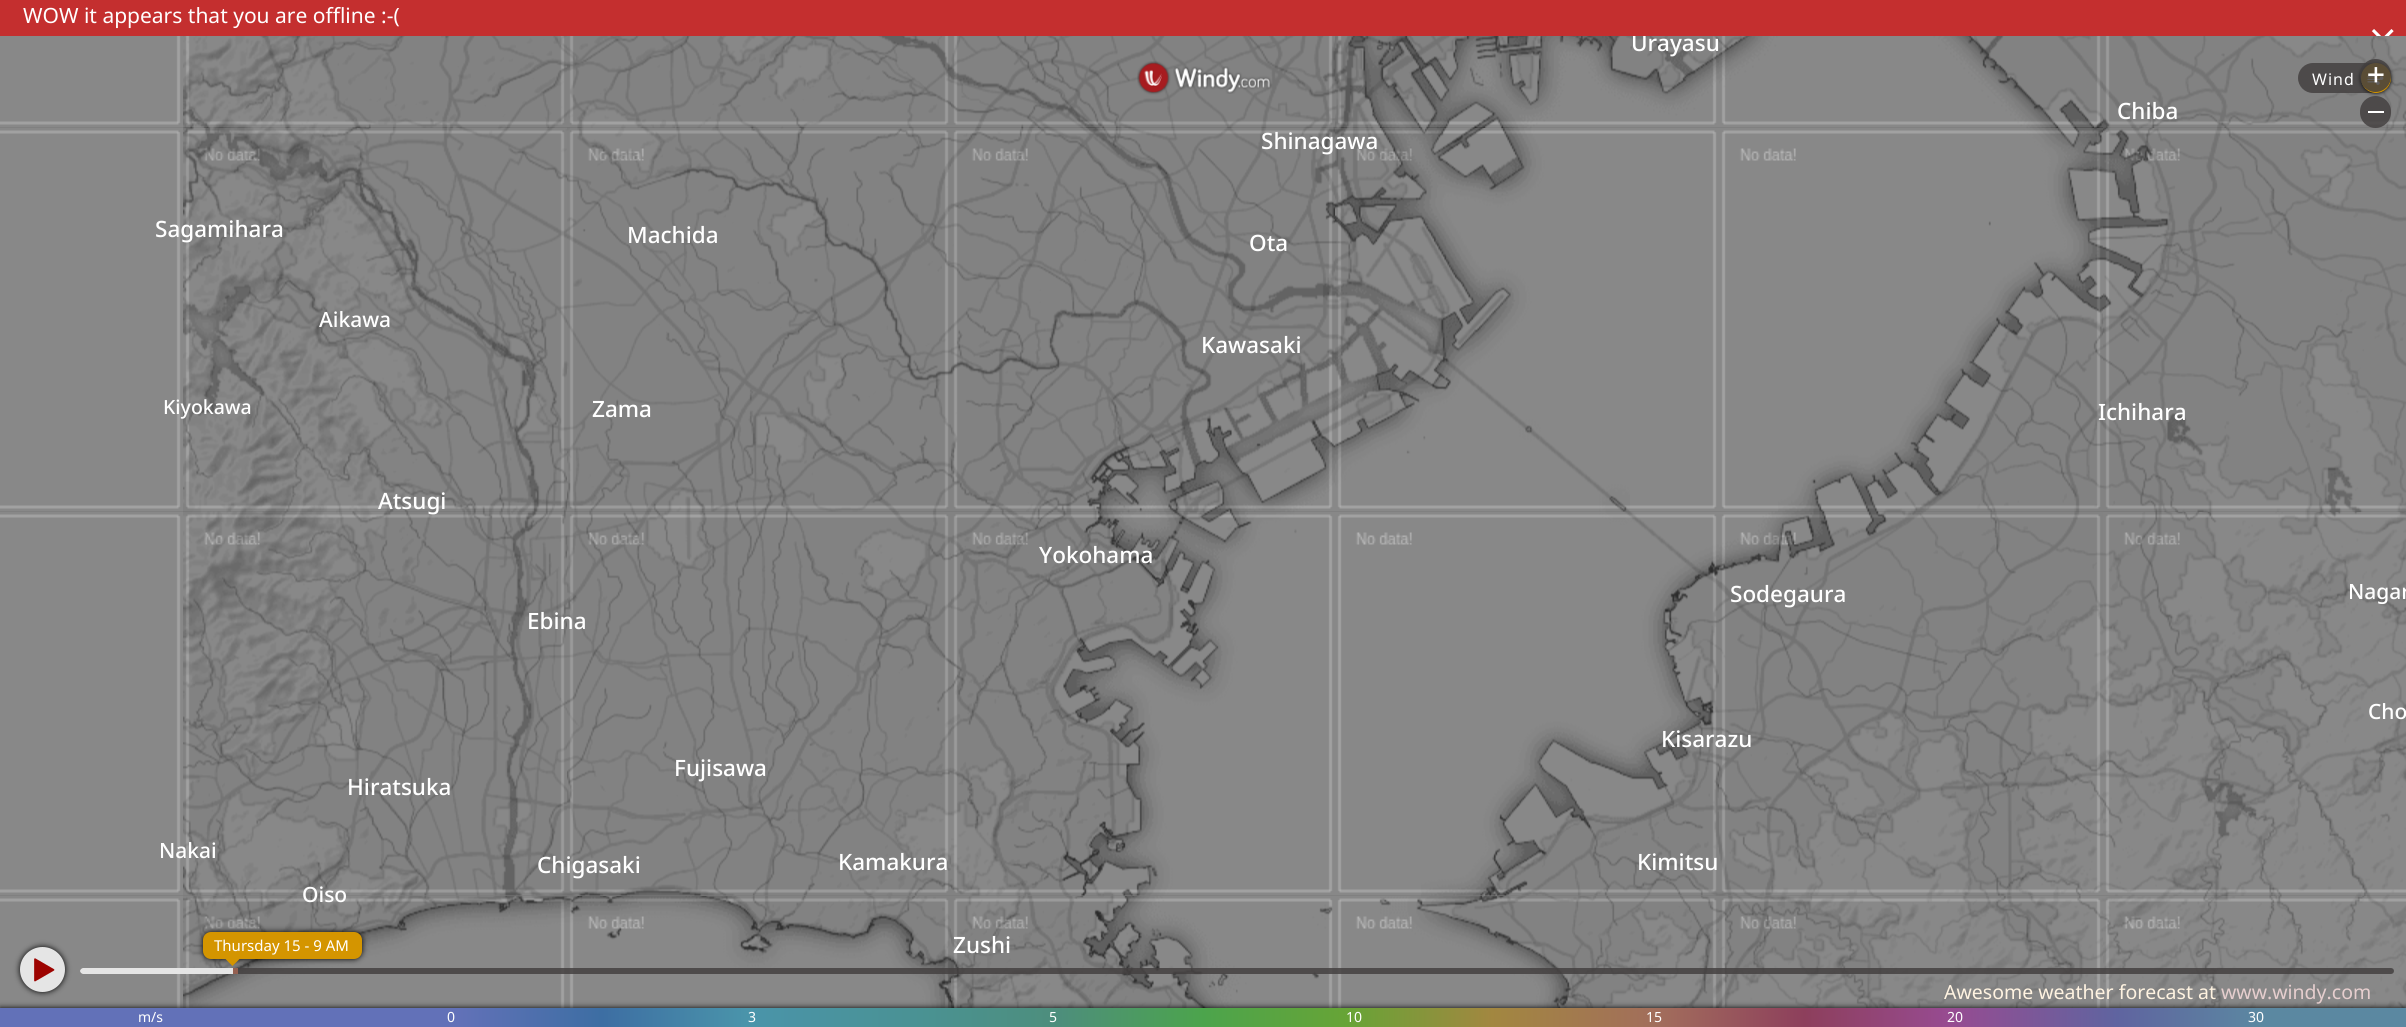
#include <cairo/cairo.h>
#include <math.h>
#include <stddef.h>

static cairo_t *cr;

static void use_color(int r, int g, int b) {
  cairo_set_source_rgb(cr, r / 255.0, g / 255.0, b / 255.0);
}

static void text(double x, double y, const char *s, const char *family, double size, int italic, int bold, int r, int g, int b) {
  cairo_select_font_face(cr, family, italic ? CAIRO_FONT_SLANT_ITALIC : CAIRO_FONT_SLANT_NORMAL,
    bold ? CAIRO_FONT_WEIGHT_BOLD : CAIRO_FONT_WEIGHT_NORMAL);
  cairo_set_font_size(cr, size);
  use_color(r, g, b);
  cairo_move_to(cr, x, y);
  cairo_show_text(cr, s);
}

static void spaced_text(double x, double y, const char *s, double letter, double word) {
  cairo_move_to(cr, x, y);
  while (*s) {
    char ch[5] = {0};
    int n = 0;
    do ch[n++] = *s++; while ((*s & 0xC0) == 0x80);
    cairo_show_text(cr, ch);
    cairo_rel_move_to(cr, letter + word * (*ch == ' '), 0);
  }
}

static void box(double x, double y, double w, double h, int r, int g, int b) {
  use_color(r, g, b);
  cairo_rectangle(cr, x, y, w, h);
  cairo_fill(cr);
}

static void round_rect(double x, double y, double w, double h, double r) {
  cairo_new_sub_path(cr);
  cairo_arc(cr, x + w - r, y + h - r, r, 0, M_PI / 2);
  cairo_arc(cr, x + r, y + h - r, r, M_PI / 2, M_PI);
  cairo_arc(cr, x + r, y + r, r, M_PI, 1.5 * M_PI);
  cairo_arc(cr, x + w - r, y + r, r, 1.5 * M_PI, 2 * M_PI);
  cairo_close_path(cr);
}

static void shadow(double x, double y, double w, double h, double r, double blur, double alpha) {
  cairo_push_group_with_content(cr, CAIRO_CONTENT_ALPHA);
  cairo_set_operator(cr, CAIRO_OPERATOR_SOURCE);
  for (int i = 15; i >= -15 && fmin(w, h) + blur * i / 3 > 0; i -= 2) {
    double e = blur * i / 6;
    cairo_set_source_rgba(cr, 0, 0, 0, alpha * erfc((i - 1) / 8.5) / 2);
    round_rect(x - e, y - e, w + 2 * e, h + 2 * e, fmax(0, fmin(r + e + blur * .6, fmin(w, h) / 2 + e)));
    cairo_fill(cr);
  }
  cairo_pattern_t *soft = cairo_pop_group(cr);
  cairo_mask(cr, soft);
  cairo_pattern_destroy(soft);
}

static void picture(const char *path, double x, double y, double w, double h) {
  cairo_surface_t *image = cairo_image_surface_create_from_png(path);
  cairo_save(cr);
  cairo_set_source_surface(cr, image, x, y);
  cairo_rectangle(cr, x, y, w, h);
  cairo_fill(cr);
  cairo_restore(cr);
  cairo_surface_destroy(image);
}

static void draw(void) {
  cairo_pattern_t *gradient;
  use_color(128, 128, 128);
  cairo_paint(cr);
  picture("img_02.png", 0, 36, 183, 91);
  picture("img_03.png", 183, 36, 384, 91);
  picture("img_03.png", 567, 36, 384, 91);
  picture("img_03.png", 951, 36, 384, 91);
  picture("img_03.png", 1335, 36, 384, 91);
  picture("img_03.png", 1719, 36, 384, 91);
  picture("img_04.png", 2103, 36, 303, 91);
  picture("img_05.png", 0, 128, 183, 383);
  picture("img_06.png", 183, 128, 384, 383);
  picture("img_06.png", 567, 128, 384, 383);
  picture("img_06.png", 951, 128, 384, 383);
  picture("img_06.png", 1335, 128, 384, 383);
  picture("img_06.png", 1719, 128, 384, 383);
  picture("img_07.png", 2103, 128, 303, 383);
  picture("img_05.png", 0, 512, 183, 383);
  picture("img_06.png", 183, 512, 384, 383);
  picture("img_06.png", 567, 512, 384, 383);
  picture("img_06.png", 951, 512, 384, 383);
  picture("img_06.png", 1335, 512, 384, 383);
  picture("img_06.png", 1719, 512, 384, 383);
  picture("img_07.png", 2103, 512, 303, 383);
  picture("img_08.png", 0, 896, 183, 112);
  picture("img_09.png", 183, 896, 384, 112);
  picture("img_09.png", 567, 896, 384, 112);
  picture("img_09.png", 951, 896, 384, 112);
  picture("img_09.png", 1335, 896, 384, 112);
  picture("img_09.png", 1719, 896, 384, 112);
  picture("img_10.png", 2103, 896, 303, 112);
  picture("img_17.png", 183, 127, 384, 385);
  picture("img_11.png", 183, 36, 384, 92);
  picture("img_18.png", 567, 127, 384, 385);
  picture("img_12.png", 567, 36, 384, 92);
  picture("img_19.png", 951, 127, 384, 385);
  picture("img_13.png", 951, 36, 384, 92);
  picture("img_20.png", 1335, 127, 295, 385);
  picture("img_14.png", 1335, 36, 384, 92);
  picture("img_21.png", 1778, 127, 325, 385);
  picture("img_15.png", 1719, 36, 384, 92);
  picture("img_16.png", 2103, 36, 303, 92);
  picture("img_22.png", 2103, 128, 303, 384);
  picture("img_23.png", 183, 511, 384, 385);
  picture("img_24.png", 567, 511, 384, 385);
  picture("img_25.png", 951, 511, 346, 385);
  picture("img_26.png", 1421, 511, 298, 385);
  picture("img_27.png", 1719, 511, 384, 385);
  picture("img_28.png", 2103, 512, 303, 384);
  picture("img_29.png", 183, 896, 384, 112);
  picture("img_30.png", 567, 896, 384, 112);
  picture("img_31.png", 951, 896, 382, 112);
  picture("img_32.png", 1379, 896, 340, 112);
  picture("img_33.png", 1719, 896, 384, 112);
  picture("img_34.png", 2103, 896, 303, 112);
  picture("img_35.png", 1137, 61, 34, 34);
  picture("img_36.png", 1173, 66, 99, 28);
  cairo_set_source_rgba(cr, 0.267, 0.255, 0.255, 0.84);
  round_rect(2298, 63, 93, 30, 15);
  cairo_fill(cr);
  use_color(0, 0, 0);
  shadow(2361, 63, 30, 30, 15, 2, 1);
  use_color(212, 149, 0);
  cairo_arc(cr, 2376, 78, 15, 0, 2 * M_PI);
  cairo_fill(cr);
  picture("img_37.png", 2367, 73, 17, 12);
  cairo_set_source_rgba(cr, 0.267, 0.255, 0.255, 0.84);
  round_rect(2360, 59, 31, 33, 15.5);
  cairo_fill(cr);
  picture("img_38.png", 2368, 67, 16, 16);
  round_rect(2360, 96, 31, 32, 15.5);
  cairo_fill(cr);
  box(2368, 111, 16, 2, 255, 255, 255);
  use_color(0, 0, 0);
  shadow(20, 947, 45, 45, 22.5, 3, 1);
  use_color(229, 229, 229);
  cairo_arc(cr, 42.5, 969.5, 22.5, 0, 2 * M_PI);
  cairo_fill(cr);
  picture("img_39.png", 34, 958, 21, 24);
  use_color(0, 0, 0);
  shadow(203, 932, 159, 27, 8, 3, 1);
  use_color(212, 149, 0);
  round_rect(203, 932, 159, 27, 8);
  cairo_fill(cr);
  cairo_new_path(cr);
  cairo_move_to(cr, 225, 958.5);
  cairo_line_to(cr, 240, 958.5);
  cairo_line_to(cr, 232.5, 966);
  cairo_close_path(cr);
  cairo_fill(cr);
  cairo_set_source_rgba(cr, 0.267, 0.255, 0.255, 0.84);
  round_rect(80, 968, 2314, 6, 3);
  cairo_fill(cr);
  use_color(229, 229, 229);
  cairo_new_path(cr);
  cairo_move_to(cr, 83, 968);
  cairo_line_to(cr, 233, 968);
  cairo_line_to(cr, 233, 974);
  cairo_line_to(cr, 83, 974);
  cairo_curve_to(cr, 81.5, 974, 80, 972.5, 80, 971);
  cairo_curve_to(cr, 80, 969.5, 81.5, 968, 83, 968);
  cairo_close_path(cr);
  cairo_fill(cr);
  box(233, 968, 5, 6, 148, 96, 81);
  use_color(0, 0, 0);
  shadow(0, 1008, 2406, 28, 0, 3, 1);
  gradient = cairo_pattern_create_linear(0, 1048, 2406, 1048);
  cairo_pattern_add_color_stop_rgba(gradient, 0, 0.384, 0.443, 0.722, 1);
  cairo_pattern_add_color_stop_rgba(gradient, 0.19, 0.384, 0.443, 0.722, 1);
  cairo_pattern_add_color_stop_rgba(gradient, 0.25, 0.239, 0.431, 0.639, 1);
  cairo_pattern_add_color_stop_rgba(gradient, 0.31, 0.29, 0.58, 0.667, 1);
  cairo_pattern_add_color_stop_rgba(gradient, 0.38, 0.29, 0.573, 0.58, 1);
  cairo_pattern_add_color_stop_rgba(gradient, 0.44, 0.302, 0.557, 0.486, 1);
  cairo_pattern_add_color_stop_rgba(gradient, 0.5, 0.298, 0.643, 0.298, 1);
  cairo_pattern_add_color_stop_rgba(gradient, 0.56, 0.404, 0.643, 0.212, 1);
  cairo_pattern_add_color_stop_rgba(gradient, 0.62, 0.635, 0.529, 0.251, 1);
  cairo_pattern_add_color_stop_rgba(gradient, 0.69, 0.635, 0.427, 0.361, 1);
  cairo_pattern_add_color_stop_rgba(gradient, 0.75, 0.553, 0.247, 0.361, 1);
  cairo_pattern_add_color_stop_rgba(gradient, 0.81, 0.592, 0.294, 0.569, 1);
  cairo_pattern_add_color_stop_rgba(gradient, 0.88, 0.373, 0.392, 0.627, 1);
  cairo_pattern_add_color_stop_rgba(gradient, 0.94, 0.357, 0.533, 0.631, 1);
  cairo_pattern_add_color_stop_rgba(gradient, 1, 0.357, 0.533, 0.631, 1);
  cairo_set_source(cr, gradient);
  cairo_pattern_destroy(gradient);
  cairo_rectangle(cr, 0, 1008, 2406, 19);
  cairo_fill(cr);
  text(1631, 51, "Urayasu", "Noto Sans Medium", 22.5, 0, 0, 255, 255, 255);
  box(0, 0, 2406, 36, 196, 47, 47);
  picture("img_01.png", 2371, 29, 23, 7);
  text(23, 23, "WOW it appears that you are offline :-(", "Noto Sans", 21, 0, 0, 255, 255, 255);
  text(2117, 119, "Chiba", "Noto Sans Medium", 22.5, 0, 0, 255, 255, 255);
  text(155, 237, "Sagamihara", "Noto Sans Medium", 22.5, 0, 0, 255, 255, 255);
  text(319, 327, "Aikawa", "Noto Sans Medium", 21, 0, 0, 255, 255, 255);
  text(163, 414, "Kiyokawa", "Noto Sans Medium", 19.5, 0, 0, 255, 255, 255);
  text(378, 509, "Atsugi", "Noto Sans Medium", 22.5, 0, 0, 255, 255, 255);
  text(627, 243, "Machida", "Noto Sans Medium", 22.5, 0, 0, 255, 255, 255);
  text(592, 417, "Zama", "Noto Sans Medium", 22.5, 0, 0, 255, 255, 255);
  text(1261, 149, "Shinagawa", "Noto Sans Medium", 22.5, 0, 0, 255, 255, 255);
  text(1249, 251, "Ota", "Noto Sans Medium", 22.5, 0, 0, 255, 255, 255);
  text(1201, 353, "Kawasaki", "Noto Sans Medium", 22.5, 0, 0, 255, 255, 255);
  text(2098, 420, "Ichihara", "Noto Sans Medium", 22.5, 0, 0, 255, 255, 255);
  text(1039, 563, "Yokohama", "Noto Sans Medium", 22.5, 0, 0, 255, 255, 255);
  text(527, 629, "Ebina", "Noto Sans Medium", 22.5, 0, 0, 255, 255, 255);
  text(347, 795, "Hiratsuka", "Noto Sans Medium", 22.5, 0, 0, 255, 255, 255);
  text(159, 858, "Nakai", "Noto Sans Medium", 21, 0, 0, 255, 255, 255);
  text(302, 902, "Oiso", "Noto Sans Medium", 21, 0, 0, 255, 255, 255);
  text(674, 776, "Fujisawa", "Noto Sans Medium", 22.5, 0, 0, 255, 255, 255);
  text(537, 873, "Chigasaki", "Noto Sans Medium", 22.5, 0, 0, 255, 255, 255);
  text(838, 870, "Kamakura", "Noto Sans Medium", 22.5, 0, 0, 255, 255, 255);
  text(1661, 747, "Kisarazu", "Noto Sans Medium", 22.5, 0, 0, 255, 255, 255);
  text(1637, 870, "Kimitsu", "Noto Sans Medium", 22.5, 0, 0, 255, 255, 255);
  text(1730, 602, "Sodegaura", "Noto Sans Medium", 22.5, 0, 0, 255, 255, 255);
  text(2348, 599, "Nagar", "Noto Sans Medium", 21, 0, 0, 255, 255, 255);
  text(2368, 719, "Cho", "Noto Sans Medium", 21, 0, 0, 255, 255, 255);
  text(953, 953, "Zushi", "Noto Sans Medium", 22.5, 0, 0, 255, 255, 255);
  cairo_select_font_face(cr, "Noto Sans", CAIRO_FONT_SLANT_NORMAL, CAIRO_FONT_WEIGHT_NORMAL);
  cairo_set_font_size(cr, 16);
  spaced_text(2312, 85, "Wind", 1, 0);
  text(214, 951, "Thursday 15 - 9 AM", "Noto Sans", 15, 0, 0, 255, 255, 255);
  text(1944, 999, "Awesome weather forecast at", "Noto Sans", 19.5, 0, 0, 255, 243, 225);
  text(2221, 999, "www.windy.com", "Noto Sans", 19.5, 0, 0, 230, 206, 206);
  text(138, 1022, "m/s", "Noto Sans", 14, 0, 0, 255, 255, 255);
  text(447, 1022, "0", "Noto Sans", 14, 0, 0, 255, 255, 255);
  text(748, 1022, "3", "Noto Sans", 14, 0, 0, 255, 255, 255);
  text(1049, 1022, "5", "Noto Sans", 14, 0, 0, 255, 255, 255);
  text(1346, 1022, "10", "Noto Sans", 14, 0, 0, 255, 255, 255);
  text(1646, 1022, "15", "Noto Sans", 14, 0, 0, 255, 255, 255);
  text(1947, 1022, "20", "Noto Sans", 14, 0, 0, 255, 255, 255);
  text(2248, 1022, "30", "Noto Sans", 14, 0, 0, 255, 255, 255);
}

int main(void) {
  cairo_surface_t *surface = cairo_image_surface_create(CAIRO_FORMAT_RGB24, 2406, 1027);
  cr = cairo_create(surface);
  cairo_font_options_t *options = cairo_font_options_create();
  cairo_font_options_set_hint_metrics(options, CAIRO_HINT_METRICS_OFF);
  cairo_font_options_set_hint_style(options, CAIRO_HINT_STYLE_NONE);
  cairo_set_font_options(cr, options);
  cairo_set_miter_limit(cr, 4);
  draw();
  cairo_surface_write_to_png(surface, "out.png");
  cairo_font_options_destroy(options);
  cairo_destroy(cr);
  cairo_surface_destroy(surface);
  return 0;
}
